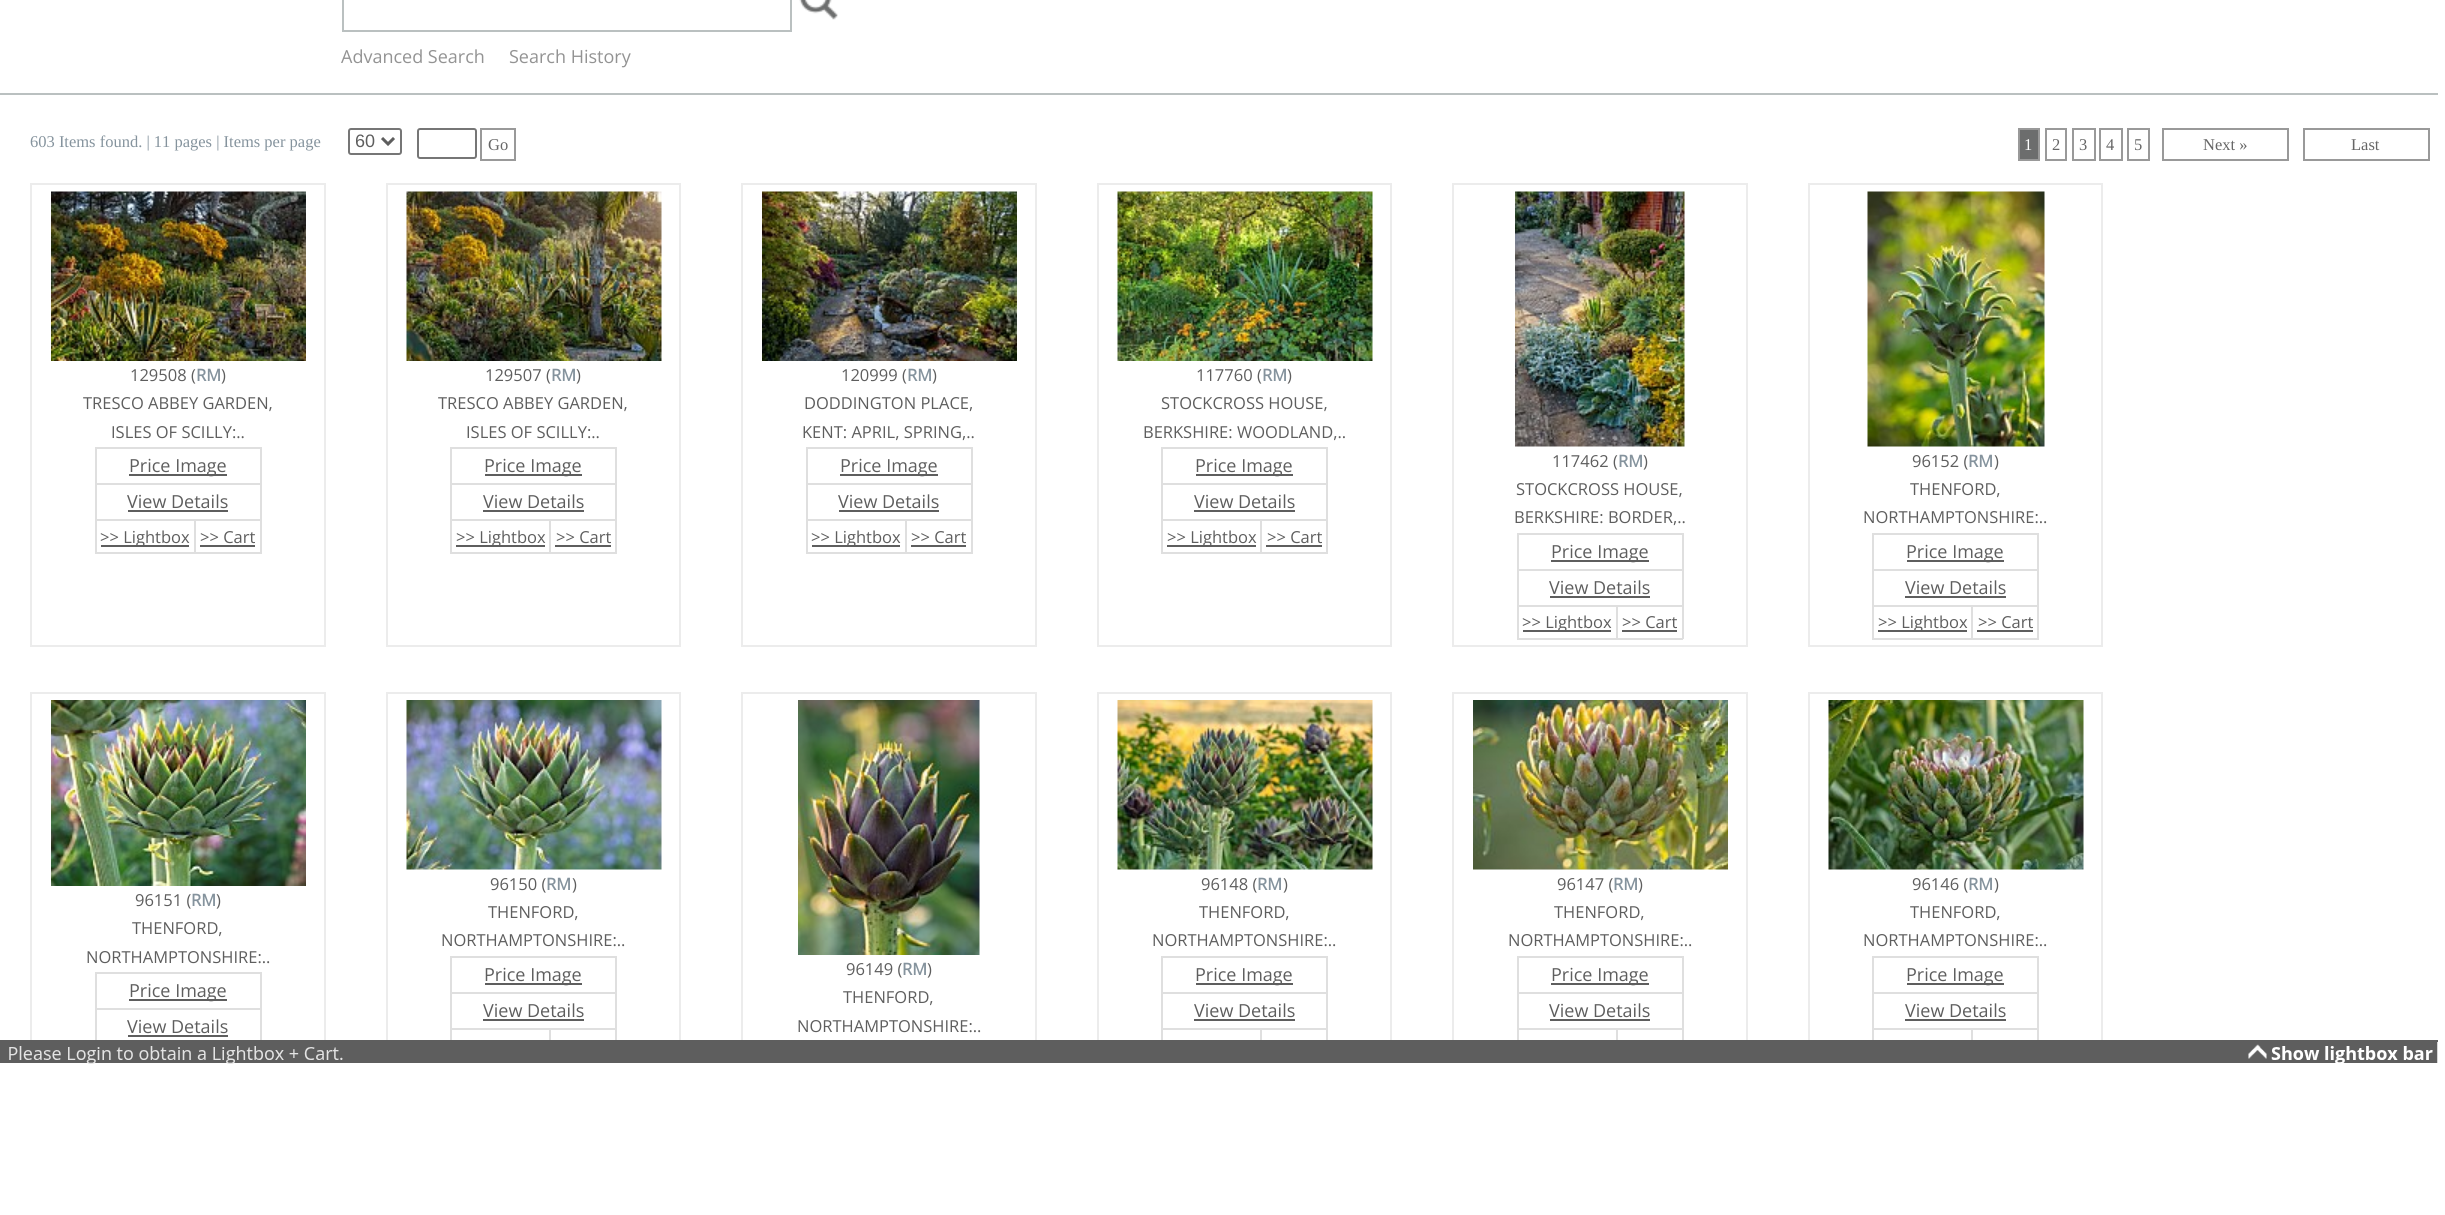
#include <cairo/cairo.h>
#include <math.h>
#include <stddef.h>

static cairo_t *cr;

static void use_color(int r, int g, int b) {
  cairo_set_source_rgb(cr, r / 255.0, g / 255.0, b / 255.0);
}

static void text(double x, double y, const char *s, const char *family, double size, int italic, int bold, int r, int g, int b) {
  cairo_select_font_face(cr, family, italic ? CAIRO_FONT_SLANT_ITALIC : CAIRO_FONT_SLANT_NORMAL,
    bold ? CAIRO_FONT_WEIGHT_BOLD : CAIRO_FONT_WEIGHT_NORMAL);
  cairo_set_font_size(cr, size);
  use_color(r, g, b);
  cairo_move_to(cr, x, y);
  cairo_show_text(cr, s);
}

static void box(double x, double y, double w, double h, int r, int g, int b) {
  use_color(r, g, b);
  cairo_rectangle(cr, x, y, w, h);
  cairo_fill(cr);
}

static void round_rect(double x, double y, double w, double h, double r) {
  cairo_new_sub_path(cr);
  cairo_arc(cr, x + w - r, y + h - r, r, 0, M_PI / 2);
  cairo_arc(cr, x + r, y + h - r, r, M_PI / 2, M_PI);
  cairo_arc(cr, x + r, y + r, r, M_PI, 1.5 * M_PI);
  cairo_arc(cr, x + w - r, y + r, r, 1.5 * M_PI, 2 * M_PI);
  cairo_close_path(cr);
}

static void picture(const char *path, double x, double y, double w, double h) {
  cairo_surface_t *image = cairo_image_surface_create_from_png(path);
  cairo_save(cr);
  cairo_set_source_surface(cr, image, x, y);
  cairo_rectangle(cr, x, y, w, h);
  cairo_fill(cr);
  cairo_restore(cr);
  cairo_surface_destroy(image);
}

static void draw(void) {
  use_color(255, 255, 255);
  cairo_paint(cr);
  box(0, 93, 2438, 2, 186, 192, 192);
  cairo_rectangle(cr, 343, -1, 448, 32);
  cairo_stroke(cr);
  picture("img_01.png", 799, 0, 39, 20);
  round_rect(349, 129, 52, 25, 2);
  use_color(118, 118, 118);
  cairo_stroke(cr);
  cairo_new_path(cr);
  cairo_move_to(cr, 382, 138);
  cairo_line_to(cr, 388, 144);
  cairo_line_to(cr, 394, 138);
  use_color(94, 94, 94);
  cairo_set_line_width(cr, 3);
  cairo_stroke(cr);
  round_rect(418, 129, 58, 29, 2);
  use_color(118, 118, 118);
  cairo_set_line_width(cr, 2);
  cairo_stroke(cr);
  cairo_rectangle(cr, 481, 129, 34, 31);
  use_color(153, 153, 153);
  cairo_stroke(cr);
  use_color(108, 109, 109);
  cairo_rectangle(cr, 2019, 129, 20, 31);
  cairo_fill_preserve(cr);
  use_color(153, 153, 153);
  cairo_stroke(cr);
  cairo_rectangle(cr, 2046, 129, 20, 31);
  cairo_stroke(cr);
  cairo_rectangle(cr, 2073, 129, 22, 31);
  cairo_stroke(cr);
  cairo_rectangle(cr, 2100, 129, 22, 31);
  cairo_stroke(cr);
  cairo_rectangle(cr, 2128, 129, 21, 31);
  cairo_stroke(cr);
  cairo_rectangle(cr, 2163, 129, 125, 31);
  cairo_stroke(cr);
  cairo_rectangle(cr, 2304, 129, 125, 31);
  cairo_stroke(cr);
  cairo_rectangle(cr, 31, 184, 294, 462);
  use_color(236, 236, 236);
  cairo_stroke(cr);
  picture("img_02.png", 51, 191, 255, 170);
  box(95, 447, 166, 2, 223, 223, 223);
  box(260, 447, 2, 107, 223, 223, 223);
  box(95, 552, 166, 2, 223, 223, 223);
  box(95, 447, 2, 107, 223, 223, 223);
  box(129, 474, 98, 2, 94, 94, 94);
  box(95, 483, 166, 2, 223, 223, 223);
  box(128, 510, 100, 2, 94, 94, 94);
  box(194, 519, 67, 2, 223, 223, 223);
  box(194, 519, 2, 35, 223, 223, 223);
  box(95, 519, 100, 2, 223, 223, 223);
  box(101, 545, 88, 2, 94, 94, 94);
  box(200, 545, 55, 2, 94, 94, 94);
  cairo_rectangle(cr, 387, 184, 293, 462);
  use_color(236, 236, 236);
  cairo_stroke(cr);
  picture("img_03.png", 406, 191, 256, 170);
  box(450, 447, 167, 2, 223, 223, 223);
  box(615, 447, 2, 107, 223, 223, 223);
  box(450, 552, 167, 2, 223, 223, 223);
  box(450, 447, 2, 107, 223, 223, 223);
  box(485, 474, 97, 2, 94, 94, 94);
  box(450, 483, 167, 2, 223, 223, 223);
  box(483, 510, 101, 2, 94, 94, 94);
  box(549, 519, 68, 2, 223, 223, 223);
  box(549, 519, 2, 35, 223, 223, 223);
  box(450, 519, 101, 2, 223, 223, 223);
  box(456, 545, 89, 2, 94, 94, 94);
  box(555, 545, 56, 2, 94, 94, 94);
  cairo_rectangle(cr, 742, 184, 294, 462);
  use_color(236, 236, 236);
  cairo_stroke(cr);
  picture("img_04.png", 762, 191, 255, 170);
  box(806, 447, 166, 2, 223, 223, 223);
  box(971, 447, 2, 107, 223, 223, 223);
  box(806, 552, 166, 2, 223, 223, 223);
  box(806, 447, 2, 107, 223, 223, 223);
  box(840, 474, 98, 2, 94, 94, 94);
  box(806, 483, 166, 2, 223, 223, 223);
  box(839, 510, 100, 2, 94, 94, 94);
  box(905, 519, 67, 2, 223, 223, 223);
  box(905, 519, 2, 35, 223, 223, 223);
  box(806, 519, 100, 2, 223, 223, 223);
  box(812, 545, 88, 2, 94, 94, 94);
  box(911, 545, 55, 2, 94, 94, 94);
  cairo_rectangle(cr, 1098, 184, 293, 462);
  use_color(236, 236, 236);
  cairo_stroke(cr);
  picture("img_05.png", 1117, 191, 256, 170);
  box(1161, 447, 167, 2, 223, 223, 223);
  box(1326, 447, 2, 107, 223, 223, 223);
  box(1161, 552, 167, 2, 223, 223, 223);
  box(1161, 447, 2, 107, 223, 223, 223);
  box(1196, 474, 97, 2, 94, 94, 94);
  box(1161, 483, 167, 2, 223, 223, 223);
  box(1194, 510, 101, 2, 94, 94, 94);
  box(1260, 519, 68, 2, 223, 223, 223);
  box(1260, 519, 2, 35, 223, 223, 223);
  box(1161, 519, 101, 2, 223, 223, 223);
  box(1167, 545, 89, 2, 94, 94, 94);
  box(1266, 545, 56, 2, 94, 94, 94);
  cairo_rectangle(cr, 1453, 184, 294, 462);
  use_color(236, 236, 236);
  cairo_stroke(cr);
  picture("img_06.png", 1515, 191, 170, 256);
  box(1517, 533, 166, 2, 223, 223, 223);
  box(1682, 533, 2, 106, 223, 223, 223);
  box(1517, 638, 166, 2, 223, 223, 223);
  box(1517, 533, 2, 106, 223, 223, 223);
  box(1551, 560, 98, 2, 94, 94, 94);
  box(1517, 569, 166, 2, 223, 223, 223);
  box(1550, 596, 100, 2, 94, 94, 94);
  box(1616, 605, 67, 2, 223, 223, 223);
  box(1616, 605, 2, 34, 223, 223, 223);
  box(1517, 605, 100, 2, 223, 223, 223);
  box(1523, 630, 88, 2, 94, 94, 94);
  box(1622, 630, 55, 2, 94, 94, 94);
  cairo_rectangle(cr, 1809, 184, 293, 462);
  use_color(236, 236, 236);
  cairo_stroke(cr);
  picture("img_07.png", 1867, 191, 178, 256);
  box(1872, 533, 167, 2, 223, 223, 223);
  box(2037, 533, 2, 106, 223, 223, 223);
  box(1872, 638, 167, 2, 223, 223, 223);
  box(1872, 533, 2, 106, 223, 223, 223);
  box(1907, 560, 97, 2, 94, 94, 94);
  box(1872, 569, 167, 2, 223, 223, 223);
  box(1905, 596, 101, 2, 94, 94, 94);
  box(1971, 605, 68, 2, 223, 223, 223);
  box(1971, 605, 2, 34, 223, 223, 223);
  box(1872, 605, 101, 2, 223, 223, 223);
  box(1878, 630, 89, 2, 94, 94, 94);
  box(1977, 630, 56, 2, 94, 94, 94);
  cairo_save(cr);
  cairo_rectangle(cr, 0, 0, 2438, 1040);
  cairo_clip(cr);
  cairo_rectangle(cr, 31, 693, 294, 461);
  use_color(236, 236, 236);
  cairo_stroke(cr);
  cairo_restore(cr);
  picture("img_08.png", 51, 700, 255, 186);
  box(95, 972, 166, 2, 223, 223, 223);
  box(260, 972, 2, 68, 223, 223, 223);
  box(95, 972, 2, 68, 223, 223, 223);
  box(129, 999, 98, 2, 94, 94, 94);
  box(95, 1008, 166, 2, 223, 223, 223);
  box(128, 1035, 100, 2, 94, 94, 94);
  cairo_save(cr);
  cairo_rectangle(cr, 0, 0, 2438, 1040);
  cairo_clip(cr);
  cairo_rectangle(cr, 387, 693, 293, 461);
  use_color(236, 236, 236);
  cairo_stroke(cr);
  cairo_restore(cr);
  picture("img_09.png", 406, 700, 256, 170);
  box(450, 956, 167, 2, 223, 223, 223);
  box(615, 956, 2, 84, 223, 223, 223);
  box(450, 956, 2, 84, 223, 223, 223);
  box(485, 983, 97, 2, 94, 94, 94);
  box(450, 992, 167, 2, 223, 223, 223);
  box(483, 1019, 101, 2, 94, 94, 94);
  box(549, 1028, 68, 2, 223, 223, 223);
  box(549, 1028, 2, 12, 223, 223, 223);
  box(450, 1028, 101, 2, 223, 223, 223);
  cairo_save(cr);
  cairo_rectangle(cr, 0, 0, 2438, 1040);
  cairo_clip(cr);
  cairo_rectangle(cr, 742, 693, 294, 461);
  use_color(236, 236, 236);
  cairo_stroke(cr);
  cairo_restore(cr);
  picture("img_10.png", 798, 700, 182, 255);
  cairo_save(cr);
  cairo_rectangle(cr, 0, 0, 2438, 1040);
  cairo_clip(cr);
  cairo_rectangle(cr, 1098, 693, 293, 461);
  use_color(236, 236, 236);
  cairo_stroke(cr);
  cairo_restore(cr);
  picture("img_11.png", 1117, 700, 256, 170);
  box(1161, 956, 167, 2, 223, 223, 223);
  box(1326, 956, 2, 84, 223, 223, 223);
  box(1161, 956, 2, 84, 223, 223, 223);
  box(1196, 983, 97, 2, 94, 94, 94);
  box(1161, 992, 167, 2, 223, 223, 223);
  box(1194, 1019, 101, 2, 94, 94, 94);
  box(1260, 1028, 68, 2, 223, 223, 223);
  box(1260, 1028, 2, 12, 223, 223, 223);
  box(1161, 1028, 101, 2, 223, 223, 223);
  cairo_save(cr);
  cairo_rectangle(cr, 0, 0, 2438, 1040);
  cairo_clip(cr);
  cairo_rectangle(cr, 1453, 693, 294, 461);
  use_color(236, 236, 236);
  cairo_stroke(cr);
  cairo_restore(cr);
  picture("img_12.png", 1473, 700, 255, 170);
  box(1517, 956, 166, 2, 223, 223, 223);
  box(1682, 956, 2, 84, 223, 223, 223);
  box(1517, 956, 2, 84, 223, 223, 223);
  box(1551, 983, 98, 2, 94, 94, 94);
  box(1517, 992, 166, 2, 223, 223, 223);
  box(1550, 1019, 100, 2, 94, 94, 94);
  box(1616, 1028, 67, 2, 223, 223, 223);
  box(1616, 1028, 2, 12, 223, 223, 223);
  box(1517, 1028, 100, 2, 223, 223, 223);
  cairo_save(cr);
  cairo_rectangle(cr, 0, 0, 2438, 1040);
  cairo_clip(cr);
  cairo_rectangle(cr, 1809, 693, 293, 461);
  use_color(236, 236, 236);
  cairo_stroke(cr);
  cairo_restore(cr);
  picture("img_13.png", 1828, 700, 256, 170);
  box(1872, 956, 167, 2, 223, 223, 223);
  box(2037, 956, 2, 84, 223, 223, 223);
  box(1872, 956, 2, 84, 223, 223, 223);
  box(1907, 983, 97, 2, 94, 94, 94);
  box(1872, 992, 167, 2, 223, 223, 223);
  box(1905, 1019, 101, 2, 94, 94, 94);
  box(1971, 1028, 68, 2, 223, 223, 223);
  box(1971, 1028, 2, 12, 223, 223, 223);
  box(1872, 1028, 101, 2, 223, 223, 223);
  box(0, 1040, 2438, 2, 94, 94, 94);
  picture("img_14.png", 0, 1042, 2438, 22);
  text(341, 63, "Advanced Search", "Open Sans", 18, 0, 0, 147, 147, 147);
  text(509, 63, "Search History", "Open Sans", 18, 0, 0, 147, 147, 147);
  text(30, 147, "603 Items found. | 11 pages | Items per page", "Liberation Serif", 16.5, 0, 0, 133, 147, 157);
  cairo_save(cr);
  cairo_rectangle(cr, 356, 129, 21, 24);
  cairo_clip(cr);
  text(355, 147, "60", "Liberation Sans", 18, 0, 0, 94, 94, 94);
  cairo_restore(cr);
  text(488, 150, "Go", "Liberation Serif", 16.5, 0, 0, 102, 102, 102);
  text(2024, 150, "1", "Liberation Serif", 16.5, 0, 0, 255, 255, 255);
  text(2052, 150, "2", "Liberation Serif", 16.5, 0, 0, 102, 102, 102);
  text(2079, 150, "3", "Liberation Serif", 16.5, 0, 0, 102, 102, 102);
  text(2106, 150, "4", "Liberation Serif", 16.5, 0, 0, 102, 102, 102);
  text(2134, 150, "5", "Liberation Serif", 16.5, 0, 0, 102, 102, 102);
  text(2203, 150, "Next »", "Liberation Serif", 16.5, 0, 0, 102, 102, 102);
  text(2351, 150, "Last", "Liberation Serif", 16.5, 0, 0, 102, 102, 102);
  text(130, 381, "129508 (", "Open Sans", 16.5, 0, 0, 94, 94, 94);
  text(196, 381, "RM", "Open Sans", 16.5, 0, 1, 133, 147, 157);
  text(221, 381, ")", "Open Sans", 16.5, 0, 0, 94, 94, 94);
  text(83, 409, "TRESCO ABBEY GARDEN,", "Open Sans", 16.5, 0, 0, 94, 94, 94);
  text(111, 438, "ISLES OF SCILLY:..", "Open Sans", 16.5, 0, 0, 94, 94, 94);
  text(129, 472, "Price Image", "Open Sans", 18, 0, 0, 94, 94, 94);
  text(127, 508, "View Details", "Open Sans", 18, 0, 0, 94, 94, 94);
  text(100, 543, ">> Lightbox", "Open Sans", 16.5, 0, 0, 94, 94, 94);
  text(200, 543, ">> Cart", "Open Sans", 16.5, 0, 0, 94, 94, 94);
  text(485, 381, "129507 (", "Open Sans", 16.5, 0, 0, 94, 94, 94);
  text(551, 381, "RM", "Open Sans", 16.5, 0, 1, 133, 147, 157);
  text(576, 381, ")", "Open Sans", 16.5, 0, 0, 94, 94, 94);
  text(438, 409, "TRESCO ABBEY GARDEN,", "Open Sans", 16.5, 0, 0, 94, 94, 94);
  text(466, 438, "ISLES OF SCILLY:..", "Open Sans", 16.5, 0, 0, 94, 94, 94);
  text(484, 472, "Price Image", "Open Sans", 18, 0, 0, 94, 94, 94);
  text(483, 508, "View Details", "Open Sans", 18, 0, 0, 94, 94, 94);
  text(456, 543, ">> Lightbox", "Open Sans", 16.5, 0, 0, 94, 94, 94);
  text(556, 543, ">> Cart", "Open Sans", 16.5, 0, 0, 94, 94, 94);
  text(841, 381, "120999 (", "Open Sans", 16.5, 0, 0, 94, 94, 94);
  text(907, 381, "RM", "Open Sans", 16.5, 0, 1, 133, 147, 157);
  text(932, 381, ")", "Open Sans", 16.5, 0, 0, 94, 94, 94);
  text(804, 409, "DODDINGTON PLACE,", "Open Sans", 16.5, 0, 0, 94, 94, 94);
  text(802, 438, "KENT: APRIL, SPRING,..", "Open Sans", 16.5, 0, 0, 94, 94, 94);
  text(840, 472, "Price Image", "Open Sans", 18, 0, 0, 94, 94, 94);
  text(838, 508, "View Details", "Open Sans", 18, 0, 0, 94, 94, 94);
  text(811, 543, ">> Lightbox", "Open Sans", 16.5, 0, 0, 94, 94, 94);
  text(911, 543, ">> Cart", "Open Sans", 16.5, 0, 0, 94, 94, 94);
  text(1196, 381, "117760 (", "Open Sans", 16.5, 0, 0, 94, 94, 94);
  text(1262, 381, "RM", "Open Sans", 16.5, 0, 1, 133, 147, 157);
  text(1287, 381, ")", "Open Sans", 16.5, 0, 0, 94, 94, 94);
  text(1161, 409, "STOCKCROSS HOUSE,", "Open Sans", 16.5, 0, 0, 94, 94, 94);
  text(1143, 438, "BERKSHIRE: WOODLAND,..", "Open Sans", 16.5, 0, 0, 94, 94, 94);
  text(1195, 472, "Price Image", "Open Sans", 18, 0, 0, 94, 94, 94);
  text(1194, 508, "View Details", "Open Sans", 18, 0, 0, 94, 94, 94);
  text(1167, 543, ">> Lightbox", "Open Sans", 16.5, 0, 0, 94, 94, 94);
  text(1267, 543, ">> Cart", "Open Sans", 16.5, 0, 0, 94, 94, 94);
  text(1552, 467, "117462 (", "Open Sans", 16.5, 0, 0, 94, 94, 94);
  text(1618, 467, "RM", "Open Sans", 16.5, 0, 1, 133, 147, 157);
  text(1643, 467, ")", "Open Sans", 16.5, 0, 0, 94, 94, 94);
  text(1516, 495, "STOCKCROSS HOUSE,", "Open Sans", 16.5, 0, 0, 94, 94, 94);
  text(1514, 523, "BERKSHIRE: BORDER,..", "Open Sans", 16.5, 0, 0, 94, 94, 94);
  text(1551, 558, "Price Image", "Open Sans", 18, 0, 0, 94, 94, 94);
  text(1549, 594, "View Details", "Open Sans", 18, 0, 0, 94, 94, 94);
  text(1522, 628, ">> Lightbox", "Open Sans", 16.5, 0, 0, 94, 94, 94);
  text(1622, 628, ">> Cart", "Open Sans", 16.5, 0, 0, 94, 94, 94);
  text(1912, 467, "96152 (", "Open Sans", 16.5, 0, 0, 94, 94, 94);
  text(1968, 467, "RM", "Open Sans", 16.5, 0, 1, 133, 147, 157);
  text(1994, 467, ")", "Open Sans", 16.5, 0, 0, 94, 94, 94);
  text(1910, 495, "THENFORD,", "Open Sans", 16.5, 0, 0, 94, 94, 94);
  text(1863, 523, "NORTHAMPTONSHIRE:..", "Open Sans", 16.5, 0, 0, 94, 94, 94);
  text(1906, 558, "Price Image", "Open Sans", 18, 0, 0, 94, 94, 94);
  text(1905, 594, "View Details", "Open Sans", 18, 0, 0, 94, 94, 94);
  text(1878, 628, ">> Lightbox", "Open Sans", 16.5, 0, 0, 94, 94, 94);
  text(1978, 628, ">> Cart", "Open Sans", 16.5, 0, 0, 94, 94, 94);
  text(135, 906, "96151 (", "Open Sans", 16.5, 0, 0, 94, 94, 94);
  text(191, 906, "RM", "Open Sans", 16.5, 0, 1, 133, 147, 157);
  text(216, 906, ")", "Open Sans", 16.5, 0, 0, 94, 94, 94);
  text(132, 934, "THENFORD,", "Open Sans", 16.5, 0, 0, 94, 94, 94);
  text(86, 963, "NORTHAMPTONSHIRE:..", "Open Sans", 16.5, 0, 0, 94, 94, 94);
  text(129, 997, "Price Image", "Open Sans", 18, 0, 0, 94, 94, 94);
  text(127, 1033, "View Details", "Open Sans", 18, 0, 0, 94, 94, 94);
  text(490, 890, "96150 (", "Open Sans", 16.5, 0, 0, 94, 94, 94);
  text(546, 890, "RM", "Open Sans", 16.5, 0, 1, 133, 147, 157);
  text(572, 890, ")", "Open Sans", 16.5, 0, 0, 94, 94, 94);
  text(488, 918, "THENFORD,", "Open Sans", 16.5, 0, 0, 94, 94, 94);
  text(441, 946, "NORTHAMPTONSHIRE:..", "Open Sans", 16.5, 0, 0, 94, 94, 94);
  text(484, 981, "Price Image", "Open Sans", 18, 0, 0, 94, 94, 94);
  text(483, 1017, "View Details", "Open Sans", 18, 0, 0, 94, 94, 94);
  text(846, 975, "96149 (", "Open Sans", 16.5, 0, 0, 94, 94, 94);
  text(902, 975, "RM", "Open Sans", 16.5, 0, 1, 133, 147, 157);
  text(927, 975, ")", "Open Sans", 16.5, 0, 0, 94, 94, 94);
  text(843, 1003, "THENFORD,", "Open Sans", 16.5, 0, 0, 94, 94, 94);
  text(797, 1032, "NORTHAMPTONSHIRE:..", "Open Sans", 16.5, 0, 0, 94, 94, 94);
  text(1201, 890, "96148 (", "Open Sans", 16.5, 0, 0, 94, 94, 94);
  text(1257, 890, "RM", "Open Sans", 16.5, 0, 1, 133, 147, 157);
  text(1283, 890, ")", "Open Sans", 16.5, 0, 0, 94, 94, 94);
  text(1199, 918, "THENFORD,", "Open Sans", 16.5, 0, 0, 94, 94, 94);
  text(1152, 946, "NORTHAMPTONSHIRE:..", "Open Sans", 16.5, 0, 0, 94, 94, 94);
  text(1195, 981, "Price Image", "Open Sans", 18, 0, 0, 94, 94, 94);
  text(1194, 1017, "View Details", "Open Sans", 18, 0, 0, 94, 94, 94);
  text(1557, 890, "96147 (", "Open Sans", 16.5, 0, 0, 94, 94, 94);
  text(1613, 890, "RM", "Open Sans", 16.5, 0, 1, 133, 147, 157);
  text(1638, 890, ")", "Open Sans", 16.5, 0, 0, 94, 94, 94);
  text(1554, 918, "THENFORD,", "Open Sans", 16.5, 0, 0, 94, 94, 94);
  text(1508, 946, "NORTHAMPTONSHIRE:..", "Open Sans", 16.5, 0, 0, 94, 94, 94);
  text(1551, 981, "Price Image", "Open Sans", 18, 0, 0, 94, 94, 94);
  text(1549, 1017, "View Details", "Open Sans", 18, 0, 0, 94, 94, 94);
  text(1912, 890, "96146 (", "Open Sans", 16.5, 0, 0, 94, 94, 94);
  text(1968, 890, "RM", "Open Sans", 16.5, 0, 1, 133, 147, 157);
  text(1994, 890, ")", "Open Sans", 16.5, 0, 0, 94, 94, 94);
  text(1910, 918, "THENFORD,", "Open Sans", 16.5, 0, 0, 94, 94, 94);
  text(1863, 946, "NORTHAMPTONSHIRE:..", "Open Sans", 16.5, 0, 0, 94, 94, 94);
  text(1906, 981, "Price Image", "Open Sans", 18, 0, 0, 94, 94, 94);
  text(1905, 1017, "View Details", "Open Sans", 18, 0, 0, 94, 94, 94);
}

int main(void) {
  cairo_surface_t *surface = cairo_image_surface_create(CAIRO_FORMAT_RGB24, 2445, 1215);
  cr = cairo_create(surface);
  cairo_font_options_t *options = cairo_font_options_create();
  cairo_font_options_set_hint_metrics(options, CAIRO_HINT_METRICS_OFF);
  cairo_font_options_set_hint_style(options, CAIRO_HINT_STYLE_NONE);
  cairo_set_font_options(cr, options);
  cairo_set_miter_limit(cr, 4);
  draw();
  cairo_surface_write_to_png(surface, "out.png");
  cairo_font_options_destroy(options);
  cairo_destroy(cr);
  cairo_surface_destroy(surface);
  return 0;
}
